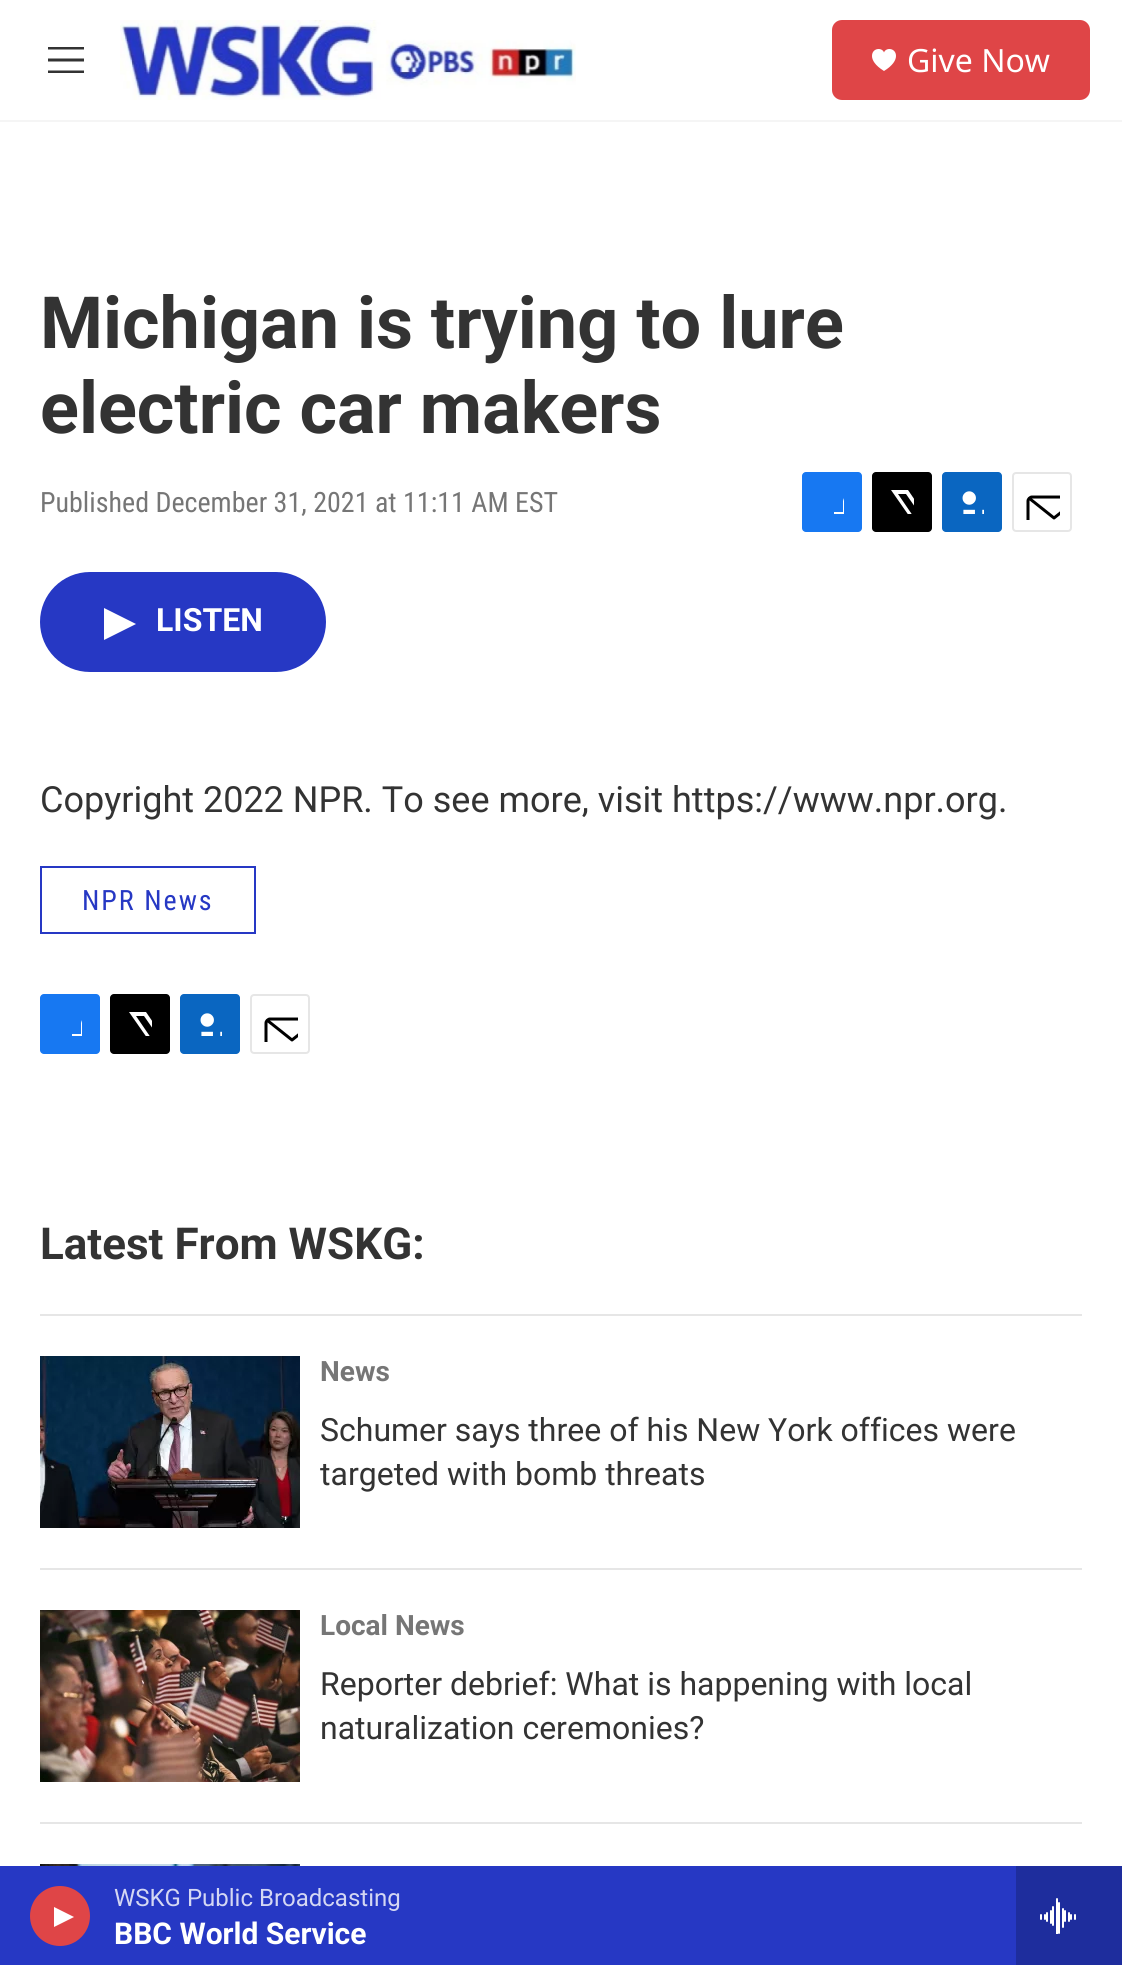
#include <cairo/cairo.h>
#include <math.h>
#include <stddef.h>

static cairo_t *cr;

static void use_color(int r, int g, int b) {
  cairo_set_source_rgb(cr, r / 255.0, g / 255.0, b / 255.0);
}

static void text(double x, double y, const char *s, const char *family, double size, int italic, int bold, int r, int g, int b) {
  cairo_select_font_face(cr, family, italic ? CAIRO_FONT_SLANT_ITALIC : CAIRO_FONT_SLANT_NORMAL,
    bold ? CAIRO_FONT_WEIGHT_BOLD : CAIRO_FONT_WEIGHT_NORMAL);
  cairo_set_font_size(cr, size);
  use_color(r, g, b);
  cairo_move_to(cr, x, y);
  cairo_show_text(cr, s);
}

static void spaced_text(double x, double y, const char *s, double letter, double word) {
  cairo_move_to(cr, x, y);
  while (*s) {
    char ch[5] = {0};
    int n = 0;
    do ch[n++] = *s++; while ((*s & 0xC0) == 0x80);
    cairo_show_text(cr, ch);
    cairo_rel_move_to(cr, letter + word * (*ch == ' '), 0);
  }
}

static void box(double x, double y, double w, double h, int r, int g, int b) {
  use_color(r, g, b);
  cairo_rectangle(cr, x, y, w, h);
  cairo_fill(cr);
}

static void round_rect(double x, double y, double w, double h, double r) {
  cairo_new_sub_path(cr);
  cairo_arc(cr, x + w - r, y + h - r, r, 0, M_PI / 2);
  cairo_arc(cr, x + r, y + h - r, r, M_PI / 2, M_PI);
  cairo_arc(cr, x + r, y + r, r, M_PI, 1.5 * M_PI);
  cairo_arc(cr, x + w - r, y + r, r, 1.5 * M_PI, 2 * M_PI);
  cairo_close_path(cr);
}

static void picture(const char *path, double x, double y, double w, double h) {
  cairo_surface_t *image = cairo_image_surface_create_from_png(path);
  cairo_save(cr);
  cairo_set_source_surface(cr, image, x, y);
  cairo_rectangle(cr, x, y, w, h);
  cairo_fill(cr);
  cairo_restore(cr);
  cairo_surface_destroy(image);
}

static void draw(void) {
  use_color(255, 255, 255);
  cairo_paint(cr);
  box(0, 120, 1122, 2, 245, 245, 245);
  use_color(51, 51, 51);
  cairo_set_fill_rule(cr, CAIRO_FILL_RULE_EVEN_ODD);
  cairo_new_path(cr);
  cairo_move_to(cr, 48, 61.5);
  cairo_line_to(cr, 48, 58.5);
  cairo_line_to(cr, 84, 58.5);
  cairo_line_to(cr, 84, 61.5);
  cairo_close_path(cr);
  cairo_move_to(cr, 48, 49.5);
  cairo_line_to(cr, 48, 47);
  cairo_line_to(cr, 84, 47);
  cairo_line_to(cr, 84, 49.5);
  cairo_close_path(cr);
  cairo_move_to(cr, 48, 73);
  cairo_line_to(cr, 48, 70.5);
  cairo_line_to(cr, 84, 70.5);
  cairo_line_to(cr, 84, 73);
  cairo_close_path(cr);
  cairo_fill(cr);
  picture("img_01.png", 120, 20, 456, 80);
  use_color(223, 69, 71);
  round_rect(832, 20, 258, 80, 10);
  cairo_fill(cr);
  picture("img_02.png", 872, 49, 24, 22);
  box(0, 1866, 1016, 99, 38, 56, 196);
  use_color(223, 69, 71);
  cairo_arc(cr, 60, 1916, 30, 0, 2 * M_PI);
  cairo_fill(cr);
  use_color(255, 255, 255);
  cairo_set_fill_rule(cr, CAIRO_FILL_RULE_WINDING);
  cairo_new_path(cr);
  cairo_move_to(cr, 54, 1907);
  cairo_line_to(cr, 74, 1917);
  cairo_line_to(cr, 54, 1927);
  cairo_close_path(cr);
  cairo_fill(cr);
  box(1016, 1866, 106, 99, 30, 45, 157);
  picture("img_03.png", 1040, 1898, 36, 36);
  use_color(23, 120, 242);
  round_rect(802, 472, 60, 60, 4);
  cairo_fill(cr);
  cairo_save(cr);
  cairo_rectangle(cr, 820, 490, 24, 24);
  cairo_clip(cr);
  use_color(255, 255, 255);
  cairo_new_path(cr);
  cairo_move_to(cr, 853, 532);
  cairo_line_to(cr, 843, 532);
  cairo_line_to(cr, 843, 522);
  cairo_line_to(cr, 834, 522);
  cairo_line_to(cr, 834, 512);
  cairo_line_to(cr, 843, 512);
  cairo_line_to(cr, 843, 501);
  cairo_curve_to(cr, 845, 492, 854, 490, 862, 491);
  cairo_line_to(cr, 862, 500);
  cairo_curve_to(cr, 851, 500, 853, 503, 853, 512);
  cairo_line_to(cr, 862, 512);
  cairo_line_to(cr, 862, 517);
  cairo_line_to(cr, 861, 522);
  cairo_line_to(cr, 853, 522);
  cairo_close_path(cr);
  cairo_fill(cr);
  cairo_restore(cr);
  use_color(0, 0, 0);
  round_rect(872, 472, 60, 60, 4);
  cairo_fill(cr);
  cairo_save(cr);
  cairo_rectangle(cr, 890, 490, 24, 24);
  cairo_clip(cr);
  use_color(255, 255, 255);
  cairo_new_path(cr);
  cairo_move_to(cr, 926, 515);
  cairo_line_to(cr, 932, 524);
  cairo_curve_to(cr, 932, 526, 933, 529, 931, 530);
  cairo_line_to(cr, 906, 494);
  cairo_line_to(cr, 898, 494);
  cairo_line_to(cr, 924, 532);
  cairo_line_to(cr, 919, 532);
  cairo_line_to(cr, 916, 527);
  cairo_line_to(cr, 912, 532);
  cairo_line_to(cr, 906, 532);
  cairo_line_to(cr, 914, 523);
  cairo_line_to(cr, 891, 490);
  cairo_line_to(cr, 908, 490);
  cairo_line_to(cr, 923, 512);
  cairo_line_to(cr, 932, 502);
  cairo_line_to(cr, 932, 508);
  cairo_close_path(cr);
  cairo_fill(cr);
  cairo_restore(cr);
  use_color(10, 102, 193);
  round_rect(942, 472, 60, 60, 4);
  cairo_fill(cr);
  picture("img_04.png", 962, 491, 22, 23);
  round_rect(1013, 473, 58, 58, 3);
  use_color(230, 230, 230);
  cairo_stroke(cr);
  cairo_save(cr);
  cairo_rectangle(cr, 1024, 484, 36, 36);
  cairo_clip(cr);
  cairo_new_path(cr);
  cairo_move_to(cr, 1080, 528);
  cairo_curve_to(cr, 1080, 530, 1078, 531.5, 1076, 531.5);
  cairo_line_to(cr, 1032, 531.5);
  cairo_curve_to(cr, 1030, 531.5, 1028, 530, 1028, 528);
  cairo_line_to(cr, 1028, 501);
  cairo_curve_to(cr, 1028, 499, 1030, 497, 1032, 497);
  cairo_line_to(cr, 1076, 497);
  cairo_curve_to(cr, 1078, 497, 1080, 499, 1080, 501);
  cairo_close_path(cr);
  cairo_move_to(cr, 1078.5, 498.5);
  cairo_line_to(cr, 1054, 518);
  cairo_line_to(cr, 1029.5, 498.5);
  use_color(0, 0, 0);
  cairo_set_line_width(cr, 3);
  cairo_set_line_cap(cr, CAIRO_LINE_CAP_ROUND);
  cairo_set_line_join(cr, CAIRO_LINE_JOIN_ROUND);
  cairo_stroke(cr);
  cairo_restore(cr);
  use_color(38, 56, 196);
  round_rect(40, 572, 286, 100, 50);
  cairo_fill(cr);
  use_color(255, 255, 255);
  cairo_new_path(cr);
  cairo_move_to(cr, 104, 608);
  cairo_line_to(cr, 136, 624);
  cairo_line_to(cr, 104, 640);
  cairo_close_path(cr);
  cairo_fill(cr);
  cairo_rectangle(cr, 41, 867, 214, 66);
  use_color(38, 56, 196);
  cairo_stroke(cr);
  use_color(23, 120, 242);
  round_rect(40, 994, 60, 60, 4);
  cairo_fill(cr);
  cairo_save(cr);
  cairo_rectangle(cr, 58, 1012, 24, 24);
  cairo_clip(cr);
  use_color(255, 255, 255);
  cairo_new_path(cr);
  cairo_move_to(cr, 91, 1054);
  cairo_line_to(cr, 81, 1054);
  cairo_line_to(cr, 81, 1044);
  cairo_line_to(cr, 72, 1044);
  cairo_line_to(cr, 72, 1034);
  cairo_line_to(cr, 81, 1034);
  cairo_line_to(cr, 81, 1023);
  cairo_curve_to(cr, 83, 1014, 92, 1012, 100, 1013);
  cairo_line_to(cr, 100, 1022);
  cairo_curve_to(cr, 89, 1022, 91, 1025, 91, 1034);
  cairo_line_to(cr, 100, 1034);
  cairo_line_to(cr, 100, 1039);
  cairo_line_to(cr, 99, 1044);
  cairo_line_to(cr, 91, 1044);
  cairo_close_path(cr);
  cairo_fill(cr);
  cairo_restore(cr);
  use_color(0, 0, 0);
  round_rect(110, 994, 60, 60, 4);
  cairo_fill(cr);
  cairo_save(cr);
  cairo_rectangle(cr, 128, 1012, 24, 24);
  cairo_clip(cr);
  use_color(255, 255, 255);
  cairo_new_path(cr);
  cairo_move_to(cr, 164, 1037);
  cairo_line_to(cr, 170, 1046);
  cairo_curve_to(cr, 170, 1048, 171, 1051, 169, 1052);
  cairo_line_to(cr, 144, 1016);
  cairo_line_to(cr, 136, 1016);
  cairo_line_to(cr, 162, 1054);
  cairo_line_to(cr, 157, 1054);
  cairo_line_to(cr, 154, 1049);
  cairo_line_to(cr, 150, 1054);
  cairo_line_to(cr, 144, 1054);
  cairo_line_to(cr, 152, 1045);
  cairo_line_to(cr, 129, 1012);
  cairo_line_to(cr, 146, 1012);
  cairo_line_to(cr, 161, 1034);
  cairo_line_to(cr, 170, 1024);
  cairo_line_to(cr, 170, 1030);
  cairo_close_path(cr);
  cairo_fill(cr);
  cairo_restore(cr);
  use_color(10, 102, 193);
  round_rect(180, 994, 60, 60, 4);
  cairo_fill(cr);
  picture("img_04.png", 200, 1013, 22, 23);
  round_rect(251, 995, 58, 58, 3);
  use_color(230, 230, 230);
  cairo_stroke(cr);
  cairo_save(cr);
  cairo_rectangle(cr, 262, 1006, 36, 36);
  cairo_clip(cr);
  cairo_new_path(cr);
  cairo_move_to(cr, 318, 1050);
  cairo_curve_to(cr, 318, 1052, 316, 1053.5, 314, 1053.5);
  cairo_line_to(cr, 270, 1053.5);
  cairo_curve_to(cr, 268, 1053.5, 266, 1052, 266, 1050);
  cairo_line_to(cr, 266, 1023);
  cairo_curve_to(cr, 266, 1021, 268, 1019, 270, 1019);
  cairo_line_to(cr, 314, 1019);
  cairo_curve_to(cr, 316, 1019, 318, 1021, 318, 1023);
  cairo_close_path(cr);
  cairo_move_to(cr, 316.5, 1020.5);
  cairo_line_to(cr, 292, 1040);
  cairo_line_to(cr, 267.5, 1020.5);
  use_color(0, 0, 0);
  cairo_set_line_width(cr, 3);
  cairo_set_line_cap(cr, CAIRO_LINE_CAP_ROUND);
  cairo_set_line_join(cr, CAIRO_LINE_JOIN_ROUND);
  cairo_stroke(cr);
  cairo_restore(cr);
  box(40, 1314, 1042, 2, 230, 230, 230);
  box(40, 1568, 1042, 2, 230, 230, 230);
  picture("img_05.png", 40, 1356, 260, 172);
  box(40, 1822, 1042, 2, 230, 230, 230);
  picture("img_06.png", 40, 1610, 260, 172);
  picture("img_07.png", 40, 1864, 260, 2);
  text(907, 72, "Give Now", "Noto Sans", 32, 0, 0, 255, 255, 255);
  text(114, 1906, "WSKG Public Broadcasting", "Roboto", 24, 0, 0, 212, 215, 243);
  text(114, 1944, "BBC World Service", "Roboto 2", 30, 0, 1, 255, 255, 255);
  text(40, 348, "Michigan is trying to lure", "Roboto", 72, 0, 1, 51, 51, 51);
  text(40, 433, "electric car makers", "Roboto", 72, 0, 1, 51, 51, 51);
  text(40, 512, "Published December 31, 2021 at 11:11 AM EST", "Roboto Condensed", 28, 0, 0, 118, 118, 118);
  text(156, 631, "LISTEN", "Roboto 2", 32, 0, 1, 255, 255, 255);
  text(40, 812, "Copyright 2022 NPR. To see more, visit https://www.npr.org.", "Roboto", 36, 0, 0, 51, 51, 51);
  cairo_select_font_face(cr, "Roboto Condensed", CAIRO_FONT_SLANT_NORMAL, CAIRO_FONT_WEIGHT_NORMAL);
  cairo_set_font_size(cr, 28);
  use_color(38, 56, 196);
  spaced_text(82, 910, "NPR News", 2, 0);
  text(40, 1259, "Latest From WSKG:", "Roboto", 44, 0, 1, 51, 51, 51);
  text(320, 1381, "News", "Roboto", 28, 0, 1, 118, 118, 118);
  text(320, 1441, "Schumer says three of his New York offices were", "Roboto", 32, 0, 0, 51, 51, 51);
  text(320, 1485, "targeted with bomb threats", "Roboto", 32, 0, 0, 51, 51, 51);
  text(320, 1635, "Local News", "Roboto", 28, 0, 1, 118, 118, 118);
  text(320, 1695, "Reporter debrief: What is happening with local", "Roboto", 32, 0, 0, 51, 51, 51);
  text(320, 1739, "naturalization ceremonies?", "Roboto", 32, 0, 0, 51, 51, 51);
}

int main(void) {
  cairo_surface_t *surface = cairo_image_surface_create(CAIRO_FORMAT_RGB24, 1122, 1965);
  cr = cairo_create(surface);
  cairo_font_options_t *options = cairo_font_options_create();
  cairo_font_options_set_hint_metrics(options, CAIRO_HINT_METRICS_OFF);
  cairo_font_options_set_hint_style(options, CAIRO_HINT_STYLE_NONE);
  cairo_set_font_options(cr, options);
  cairo_set_miter_limit(cr, 4);
  draw();
  cairo_surface_write_to_png(surface, "out.png");
  cairo_font_options_destroy(options);
  cairo_destroy(cr);
  cairo_surface_destroy(surface);
  return 0;
}
